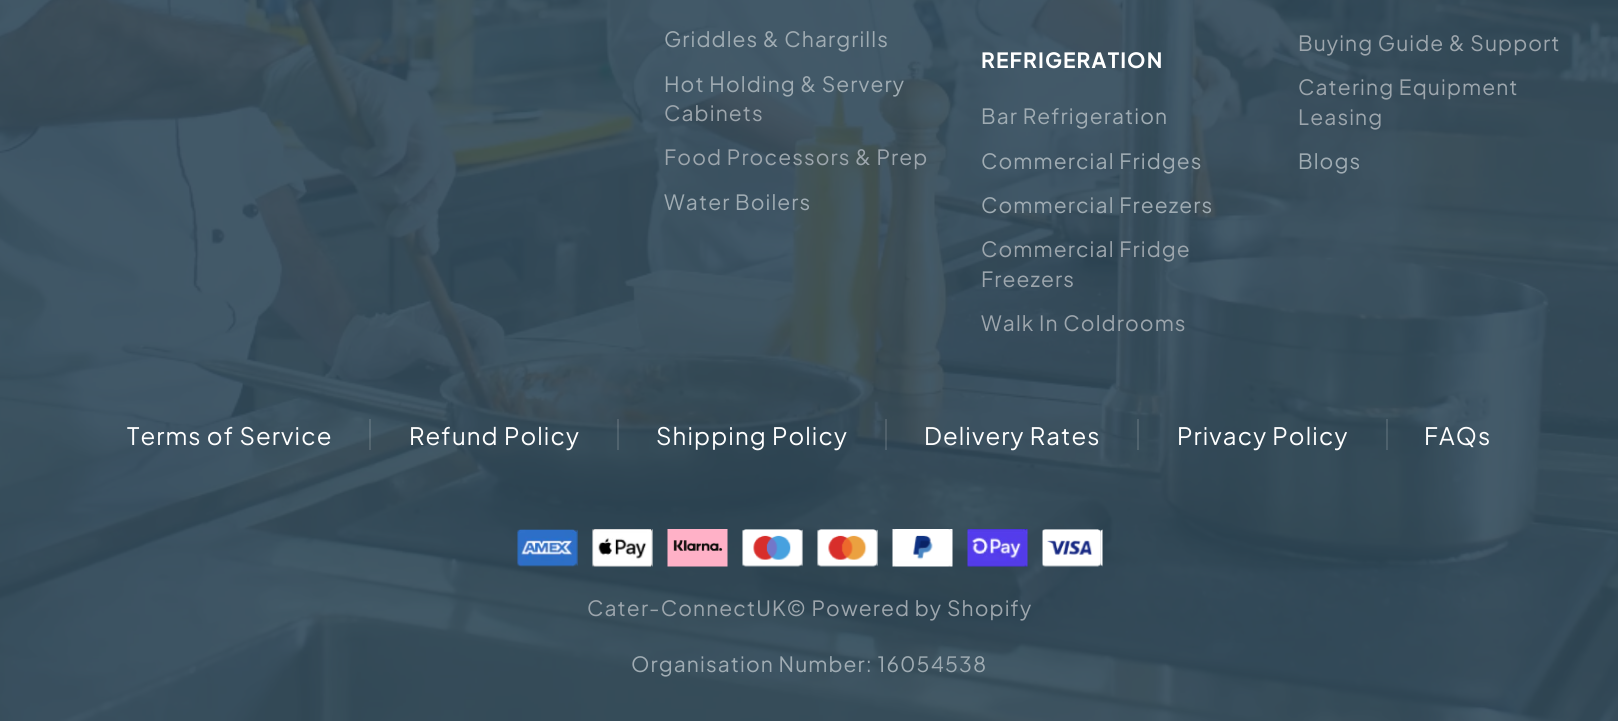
#include <cairo/cairo.h>
#include <math.h>
#include <stddef.h>

static cairo_t *cr;

static void use_color(int r, int g, int b) {
  cairo_set_source_rgb(cr, r / 255.0, g / 255.0, b / 255.0);
}

static void spaced_text(double x, double y, const char *s, double letter, double word) {
  cairo_move_to(cr, x, y);
  while (*s) {
    char ch[5] = {0};
    int n = 0;
    do ch[n++] = *s++; while ((*s & 0xC0) == 0x80);
    cairo_show_text(cr, ch);
    cairo_rel_move_to(cr, letter + word * (*ch == ' '), 0);
  }
}

static void picture(const char *path, double x, double y, double w, double h) {
  cairo_surface_t *image = cairo_image_surface_create_from_png(path);
  cairo_save(cr);
  cairo_set_source_surface(cr, image, x, y);
  cairo_rectangle(cr, x, y, w, h);
  cairo_fill(cr);
  cairo_restore(cr);
  cairo_surface_destroy(image);
}

static void draw(void) {
  use_color(255, 255, 255);
  cairo_paint(cr);
  picture("img_01.png", 0, 0, 1618, 721);
  cairo_set_source_rgba(cr, 1, 1, 1, 0.13);
  cairo_rectangle(cr, 369, 419, 2, 31);
  cairo_fill(cr);
  cairo_rectangle(cr, 617, 419, 2, 31);
  cairo_fill(cr);
  cairo_rectangle(cr, 885, 419, 2, 31);
  cairo_fill(cr);
  cairo_rectangle(cr, 1137, 419, 2, 31);
  cairo_fill(cr);
  cairo_rectangle(cr, 1386, 419, 2, 31);
  cairo_fill(cr);
  picture("img_02.png", 517, 529, 61, 38);
  picture("img_03.png", 592, 529, 61, 38);
  picture("img_04.png", 667, 529, 61, 38);
  picture("img_05.png", 742, 529, 61, 38);
  picture("img_06.png", 817, 529, 61, 38);
  picture("img_07.png", 892, 529, 61, 38);
  picture("img_08.png", 967, 529, 61, 38);
  picture("img_09.png", 1042, 529, 61, 38);
  cairo_select_font_face(cr, "Plus Jakarta Sans", CAIRO_FONT_SLANT_NORMAL, CAIRO_FONT_WEIGHT_NORMAL);
  cairo_set_font_size(cr, 21);
  use_color(160, 172, 179);
  spaced_text(664, 47, "Griddles & Chargrills", 1.1, 0);
  spaced_text(664, 92, "Hot Holding & Servery", 1.1, 0);
  use_color(157, 166, 173);
  spaced_text(664, 121, "Cabinets", 1.1, 0);
  spaced_text(664, 165, "Food Processors & Prep", 1.1, 0);
  use_color(160, 172, 179);
  spaced_text(664, 210, "Water Boilers", 1.1, 0);
  cairo_select_font_face(cr, "Plus Jakarta Sans", CAIRO_FONT_SLANT_NORMAL, CAIRO_FONT_WEIGHT_BOLD);
  use_color(255, 255, 255);
  spaced_text(981, 68, "REFRIGERATION", 1.1, 0);
  cairo_select_font_face(cr, "Plus Jakarta Sans", CAIRO_FONT_SLANT_NORMAL, CAIRO_FONT_WEIGHT_NORMAL);
  use_color(160, 172, 179);
  spaced_text(981, 124, "Bar Refrigeration", 1.1, 0);
  spaced_text(981, 169, "Commercial Fridges", 1.1, 0);
  spaced_text(981, 213, "Commercial Freezers", 1.1, 0);
  use_color(157, 166, 173);
  spaced_text(981, 257, "Commercial Fridge", 1.1, 0);
  spaced_text(981, 287, "Freezers", 1.1, 0);
  spaced_text(981, 331, "Walk In Coldrooms", 1.1, 0);
  spaced_text(1298, 51, "Buying Guide & Support", 1.1, 0);
  spaced_text(1298, 95, "Catering Equipment", 1.1, 0);
  spaced_text(1298, 125, "Leasing", 1.1, 0);
  use_color(160, 172, 179);
  spaced_text(1298, 169, "Blogs", 1.1, 0);
  cairo_set_font_size(cr, 24);
  use_color(255, 255, 255);
  spaced_text(127, 445, "Terms of Service", 1.1, 0);
  spaced_text(409, 445, "Refund Policy", 1.1, 0);
  spaced_text(656, 445, "Shipping Policy", 1.1, 0);
  spaced_text(924, 445, "Delivery Rates", 1.1, 0);
  spaced_text(1177, 445, "Privacy Policy", 1.1, 0);
  spaced_text(1424, 445, "FAQs", 1.1, 0);
  cairo_set_font_size(cr, 21);
  use_color(157, 166, 173);
  spaced_text(587, 616, "Cater-ConnectUK© Powered by Shopify", 1.1, 0);
  use_color(160, 172, 179);
  spaced_text(631, 672, "Organisation Number: 16054538", 1.1, 0);
}

int main(void) {
  cairo_surface_t *surface = cairo_image_surface_create(CAIRO_FORMAT_RGB24, 1618, 721);
  cr = cairo_create(surface);
  cairo_font_options_t *options = cairo_font_options_create();
  cairo_font_options_set_hint_metrics(options, CAIRO_HINT_METRICS_OFF);
  cairo_font_options_set_hint_style(options, CAIRO_HINT_STYLE_NONE);
  cairo_set_font_options(cr, options);
  cairo_set_miter_limit(cr, 4);
  draw();
  cairo_surface_write_to_png(surface, "out.png");
  cairo_font_options_destroy(options);
  cairo_destroy(cr);
  cairo_surface_destroy(surface);
  return 0;
}
